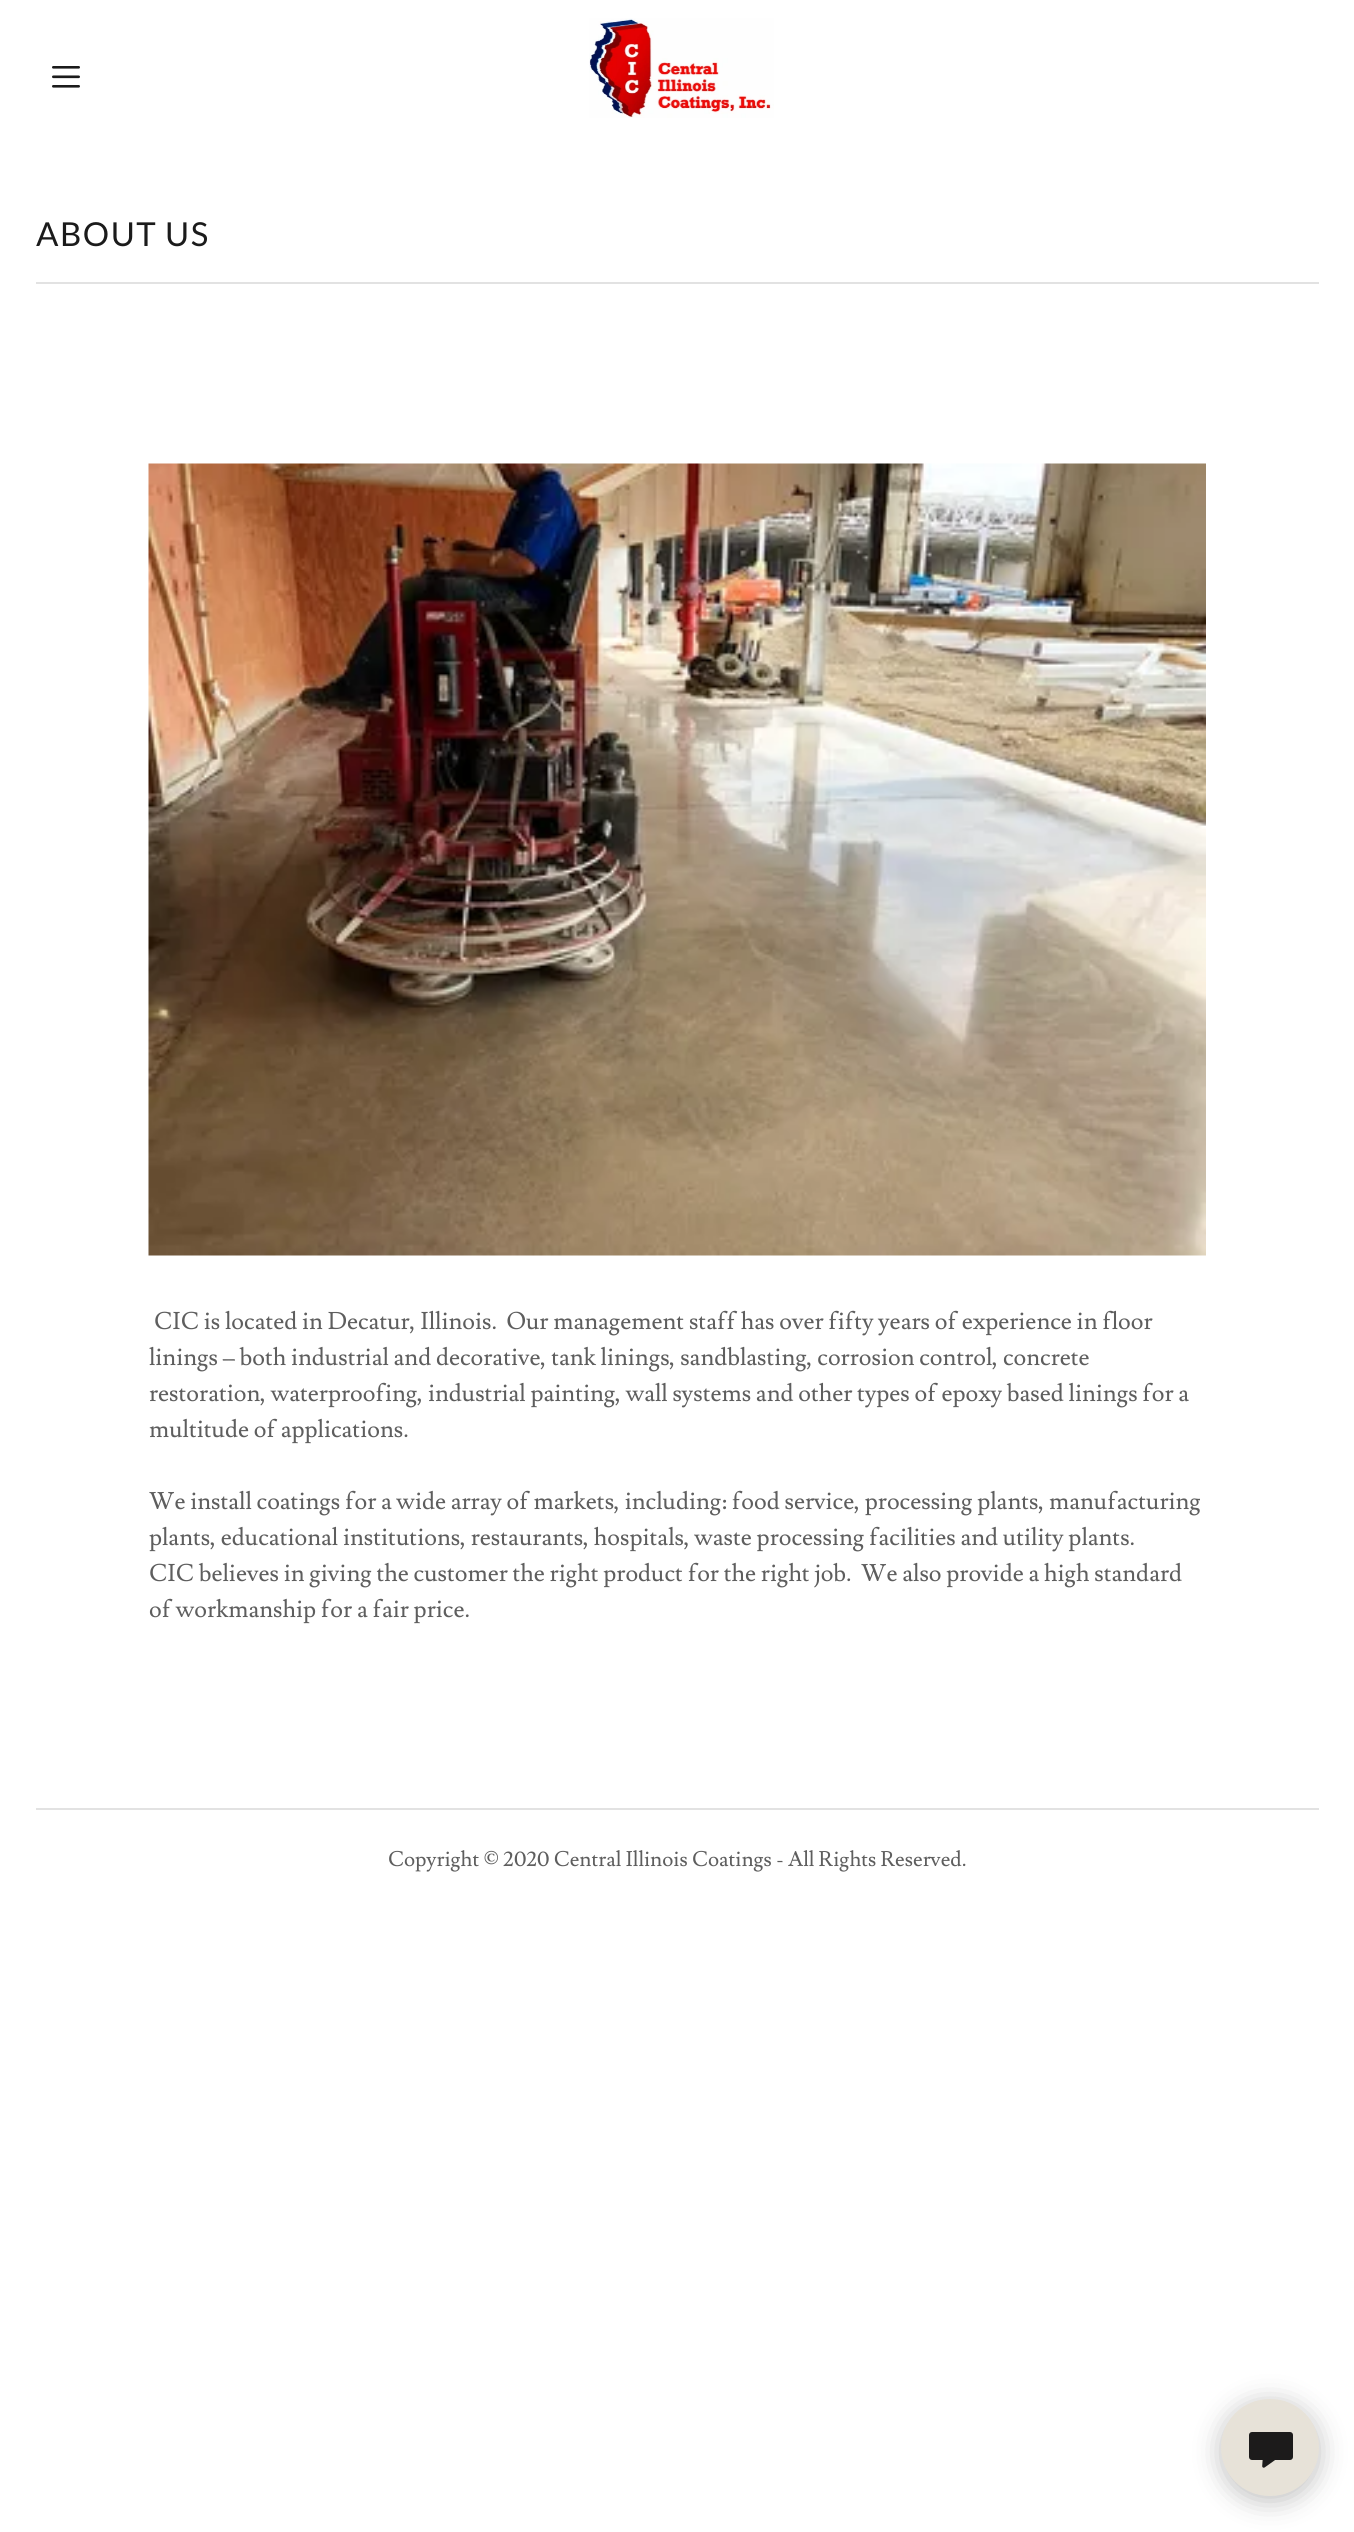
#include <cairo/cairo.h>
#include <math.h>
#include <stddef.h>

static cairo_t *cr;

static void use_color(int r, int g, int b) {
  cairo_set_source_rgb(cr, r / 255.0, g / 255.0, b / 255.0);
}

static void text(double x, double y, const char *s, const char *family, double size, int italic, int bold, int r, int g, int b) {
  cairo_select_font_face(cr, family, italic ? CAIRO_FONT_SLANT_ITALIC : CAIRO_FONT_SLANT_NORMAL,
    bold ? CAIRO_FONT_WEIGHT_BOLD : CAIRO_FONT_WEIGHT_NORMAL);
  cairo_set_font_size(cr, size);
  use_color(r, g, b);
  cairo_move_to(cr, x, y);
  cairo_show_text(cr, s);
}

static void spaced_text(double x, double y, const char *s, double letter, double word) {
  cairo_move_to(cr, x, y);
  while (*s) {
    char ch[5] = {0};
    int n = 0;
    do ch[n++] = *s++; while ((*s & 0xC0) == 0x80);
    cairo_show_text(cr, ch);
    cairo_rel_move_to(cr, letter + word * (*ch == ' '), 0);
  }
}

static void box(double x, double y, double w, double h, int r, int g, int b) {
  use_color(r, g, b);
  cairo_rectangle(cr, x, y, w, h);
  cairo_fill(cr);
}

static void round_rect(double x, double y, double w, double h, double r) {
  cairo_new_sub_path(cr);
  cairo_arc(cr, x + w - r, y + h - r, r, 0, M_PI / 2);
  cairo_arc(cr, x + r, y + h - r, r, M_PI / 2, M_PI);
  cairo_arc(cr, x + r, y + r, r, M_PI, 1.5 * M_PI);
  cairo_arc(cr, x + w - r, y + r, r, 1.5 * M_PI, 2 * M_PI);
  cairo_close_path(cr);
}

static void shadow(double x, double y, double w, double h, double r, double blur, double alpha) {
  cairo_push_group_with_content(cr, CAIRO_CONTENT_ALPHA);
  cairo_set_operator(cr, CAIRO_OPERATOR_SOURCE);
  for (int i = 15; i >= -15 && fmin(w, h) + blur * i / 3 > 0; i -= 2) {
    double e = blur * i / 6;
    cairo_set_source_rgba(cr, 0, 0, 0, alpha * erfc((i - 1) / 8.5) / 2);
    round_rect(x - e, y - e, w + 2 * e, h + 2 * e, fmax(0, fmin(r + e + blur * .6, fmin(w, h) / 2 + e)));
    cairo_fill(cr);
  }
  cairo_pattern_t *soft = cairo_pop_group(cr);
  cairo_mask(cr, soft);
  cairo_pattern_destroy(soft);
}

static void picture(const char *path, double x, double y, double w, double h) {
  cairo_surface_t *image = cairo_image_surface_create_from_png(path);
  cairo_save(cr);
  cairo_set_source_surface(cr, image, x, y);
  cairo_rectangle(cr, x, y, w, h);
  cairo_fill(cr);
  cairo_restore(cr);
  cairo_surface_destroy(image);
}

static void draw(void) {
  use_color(255, 255, 255);
  cairo_paint(cr);
  picture("img_01.png", 52, 66, 28, 22);
  picture("img_02.png", 589, 18, 185, 100);
  box(36, 282, 1283, 2, 226, 226, 226);
  picture("img_03.png", 148, 463, 1058, 793);
  box(36, 1808, 1283, 2, 226, 226, 226);
  use_color(0, 0, 0);
  shadow(1221, 2403, 98, 98, 49, 13.5, 0.25);
  use_color(231, 226, 216);
  round_rect(1221, 2399, 98, 97, 48.5);
  cairo_fill(cr);
  picture("img_04.png", 1249, 2432, 44, 36);
  cairo_select_font_face(cr, "Lato", CAIRO_FONT_SLANT_NORMAL, CAIRO_FONT_WEIGHT_NORMAL);
  cairo_set_font_size(cr, 33);
  use_color(27, 27, 27);
  spaced_text(36, 246, "ABOUT US", 1.5, 0);
  text(154, 1329, "CIC is located in Decatur, Illinois.  Our management staff has over fifty years of experience in floor", "Lusitana", 24, 0, 0, 94, 94, 94);
  text(149, 1365, "linings – both industrial and decorative, tank linings, sandblasting, corrosion control, concrete", "Lusitana", 24, 0, 0, 94, 94, 94);
  text(149, 1401, "restoration, waterproofing, industrial painting, wall systems and other types of epoxy based linings for a", "Lusitana", 24, 0, 0, 94, 94, 94);
  text(149, 1437, "multitude of applications.", "Lusitana", 24, 0, 0, 94, 94, 94);
  text(149, 1509, "We install coatings for a wide array of markets, including: food service, processing plants, manufacturing", "Lusitana", 24, 0, 0, 94, 94, 94);
  text(149, 1545, "plants, educational institutions, restaurants, hospitals, waste processing facilities and utility plants.", "Lusitana", 24, 0, 0, 94, 94, 94);
  text(149, 1581, "CIC believes in giving the customer the right product for the right job.  We also provide a high standard", "Lusitana", 24, 0, 0, 94, 94, 94);
  text(149, 1617, "of workmanship for a fair price.", "Lusitana", 24, 0, 0, 94, 94, 94);
  text(388, 1866, "Copyright © 2020 Central Illinois Coatings - All Rights Reserved.", "Lusitana", 21, 0, 0, 94, 94, 94);
}

int main(void) {
  cairo_surface_t *surface = cairo_image_surface_create(CAIRO_FORMAT_RGB24, 1354, 2532);
  cr = cairo_create(surface);
  cairo_font_options_t *options = cairo_font_options_create();
  cairo_font_options_set_hint_metrics(options, CAIRO_HINT_METRICS_OFF);
  cairo_font_options_set_hint_style(options, CAIRO_HINT_STYLE_NONE);
  cairo_set_font_options(cr, options);
  cairo_set_miter_limit(cr, 4);
  draw();
  cairo_surface_write_to_png(surface, "out.png");
  cairo_font_options_destroy(options);
  cairo_destroy(cr);
  cairo_surface_destroy(surface);
  return 0;
}
